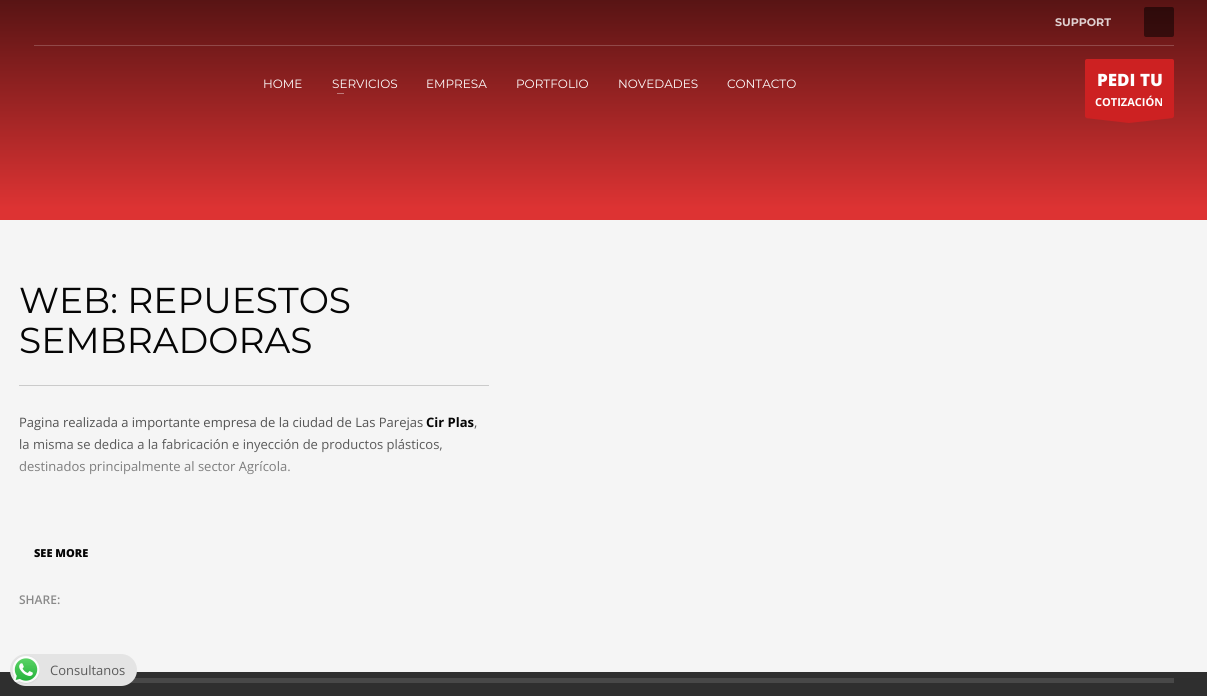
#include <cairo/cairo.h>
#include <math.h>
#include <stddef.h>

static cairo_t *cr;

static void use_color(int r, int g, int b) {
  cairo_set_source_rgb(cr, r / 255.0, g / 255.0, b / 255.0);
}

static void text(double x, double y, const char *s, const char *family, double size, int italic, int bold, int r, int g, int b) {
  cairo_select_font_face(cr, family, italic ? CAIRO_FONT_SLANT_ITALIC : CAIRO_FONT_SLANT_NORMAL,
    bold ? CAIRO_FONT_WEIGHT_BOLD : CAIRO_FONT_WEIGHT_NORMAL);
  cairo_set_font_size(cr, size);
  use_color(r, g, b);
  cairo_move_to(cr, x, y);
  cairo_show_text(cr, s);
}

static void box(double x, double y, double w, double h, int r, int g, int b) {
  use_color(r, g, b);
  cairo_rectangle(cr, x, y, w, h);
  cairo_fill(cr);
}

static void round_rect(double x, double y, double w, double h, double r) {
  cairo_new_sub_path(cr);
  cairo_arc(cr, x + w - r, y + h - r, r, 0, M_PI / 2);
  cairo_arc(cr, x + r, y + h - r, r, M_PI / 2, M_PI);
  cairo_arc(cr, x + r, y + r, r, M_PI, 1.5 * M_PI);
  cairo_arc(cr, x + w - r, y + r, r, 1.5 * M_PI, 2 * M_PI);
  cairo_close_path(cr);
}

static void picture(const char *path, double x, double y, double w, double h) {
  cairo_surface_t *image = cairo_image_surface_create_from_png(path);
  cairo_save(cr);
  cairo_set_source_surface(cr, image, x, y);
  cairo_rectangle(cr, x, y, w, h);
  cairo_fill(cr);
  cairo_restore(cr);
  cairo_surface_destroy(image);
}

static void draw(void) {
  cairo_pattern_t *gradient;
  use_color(245, 245, 245);
  cairo_paint(cr);
  gradient = cairo_pattern_create_linear(604, 0, 604, 207);
  cairo_pattern_add_color_stop_rgba(gradient, 0, 0.345, 0.078, 0.078, 1);
  cairo_pattern_add_color_stop_rgba(gradient, 1, 0.863, 0.2, 0.2, 1);
  cairo_set_source(cr, gradient);
  cairo_pattern_destroy(gradient);
  cairo_rectangle(cr, 0, 0, 1207, 207);
  cairo_fill(cr);
  cairo_set_source_rgba(cr, 0, 0, 0, 0.5);
  round_rect(1144, 7, 30, 30, 2);
  cairo_fill(cr);
  box(34, 45, 1140, 1, 145, 73, 73);
  box(337, 93, 7, 1, 191, 122, 122);
  use_color(205, 33, 34);
  round_rect(1085, 59, 89, 59, 2);
  cairo_fill(cr);
  cairo_set_fill_rule(cr, CAIRO_FILL_RULE_EVEN_ODD);
  cairo_new_path(cr);
  cairo_move_to(cr, 1173, 118);
  cairo_line_to(cr, 1129, 123);
  cairo_line_to(cr, 1085, 118);
  cairo_close_path(cr);
  cairo_fill(cr);
  box(0, 207, 1207, 13, 221, 51, 51);
  box(19, 385, 470, 1, 203, 203, 203);
  box(0, 672, 1207, 24, 47, 47, 47);
  box(130, 678, 1044, 5, 72, 72, 72);
  use_color(228, 228, 228);
  round_rect(10, 654, 127, 32, 16);
  cairo_fill(cr);
  picture("img_01.png", 12, 656, 28, 28);
  text(1055, 26, "SUPPORT", "Montserrat", 11, 0, 1, 224, 209, 209);
  text(263, 88, "HOME", "Montserrat", 12, 0, 0, 255, 255, 255);
  text(332, 88, "SERVICIOS", "Montserrat", 12, 0, 0, 255, 255, 255);
  text(426, 88, "EMPRESA", "Montserrat", 12, 0, 0, 255, 255, 255);
  text(516, 88, "PORTFOLIO", "Montserrat", 12, 0, 0, 255, 255, 255);
  text(618, 88, "NOVEDADES", "Montserrat", 12, 0, 0, 255, 255, 255);
  text(727, 88, "CONTACTO", "Montserrat", 12, 0, 0, 255, 255, 255);
  text(1097, 86, "PEDI TU", "Open Sans ExtraBold", 17, 0, 0, 255, 255, 255);
  text(1095, 106, "COTIZACIÓN", "Open Sans", 11, 0, 1, 255, 255, 255);
  text(19, 313, "WEB: REPUESTOS", "Montserrat", 36, 0, 0, 5, 5, 5);
  text(19, 353, "SEMBRADORAS", "Montserrat", 36, 0, 0, 5, 5, 5);
  text(19, 427, "Pagina realizada a importante empresa de la ciudad de Las Parejas", "Open Sans", 13, 0, 0, 83, 83, 83);
  text(426, 427, "Cir Plas", "Open Sans", 13, 0, 1, 5, 5, 5);
  text(474, 427, ",", "Open Sans", 13, 0, 0, 83, 83, 83);
  text(19, 449, "la misma se dedica a la fabricación e inyección de productos plásticos,", "Open Sans", 13, 0, 0, 83, 83, 83);
  text(19, 471, "destinados principalmente al sector Agrícola.", "Open Sans", 13, 0, 0, 83, 83, 83);
  gradient = cairo_pattern_create_linear(254, 441, 254, 541);
  cairo_pattern_add_color_stop_rgba(gradient, 0, 0.961, 0.961, 0.961, 0);
  cairo_pattern_add_color_stop_rgba(gradient, 1, 0.961, 0.961, 0.961, 1);
  cairo_set_source(cr, gradient);
  cairo_pattern_destroy(gradient);
  cairo_rectangle(cr, 19, 443, 422, 32);
  cairo_fill(cr);
  text(34, 557, "SEE MORE", "Open Sans ExtraBold", 11, 0, 0, 5, 5, 5);
  text(19, 604, "SHARE:", "Open Sans SemiBold", 12, 0, 0, 138, 138, 138);
  text(50, 675, "Consultanos", "Open Sans", 13, 0, 0, 91, 91, 91);
}

int main(void) {
  cairo_surface_t *surface = cairo_image_surface_create(CAIRO_FORMAT_RGB24, 1207, 696);
  cr = cairo_create(surface);
  cairo_font_options_t *options = cairo_font_options_create();
  cairo_font_options_set_hint_metrics(options, CAIRO_HINT_METRICS_OFF);
  cairo_font_options_set_hint_style(options, CAIRO_HINT_STYLE_NONE);
  cairo_set_font_options(cr, options);
  cairo_set_miter_limit(cr, 4);
  draw();
  cairo_surface_write_to_png(surface, "out.png");
  cairo_font_options_destroy(options);
  cairo_destroy(cr);
  cairo_surface_destroy(surface);
  return 0;
}
